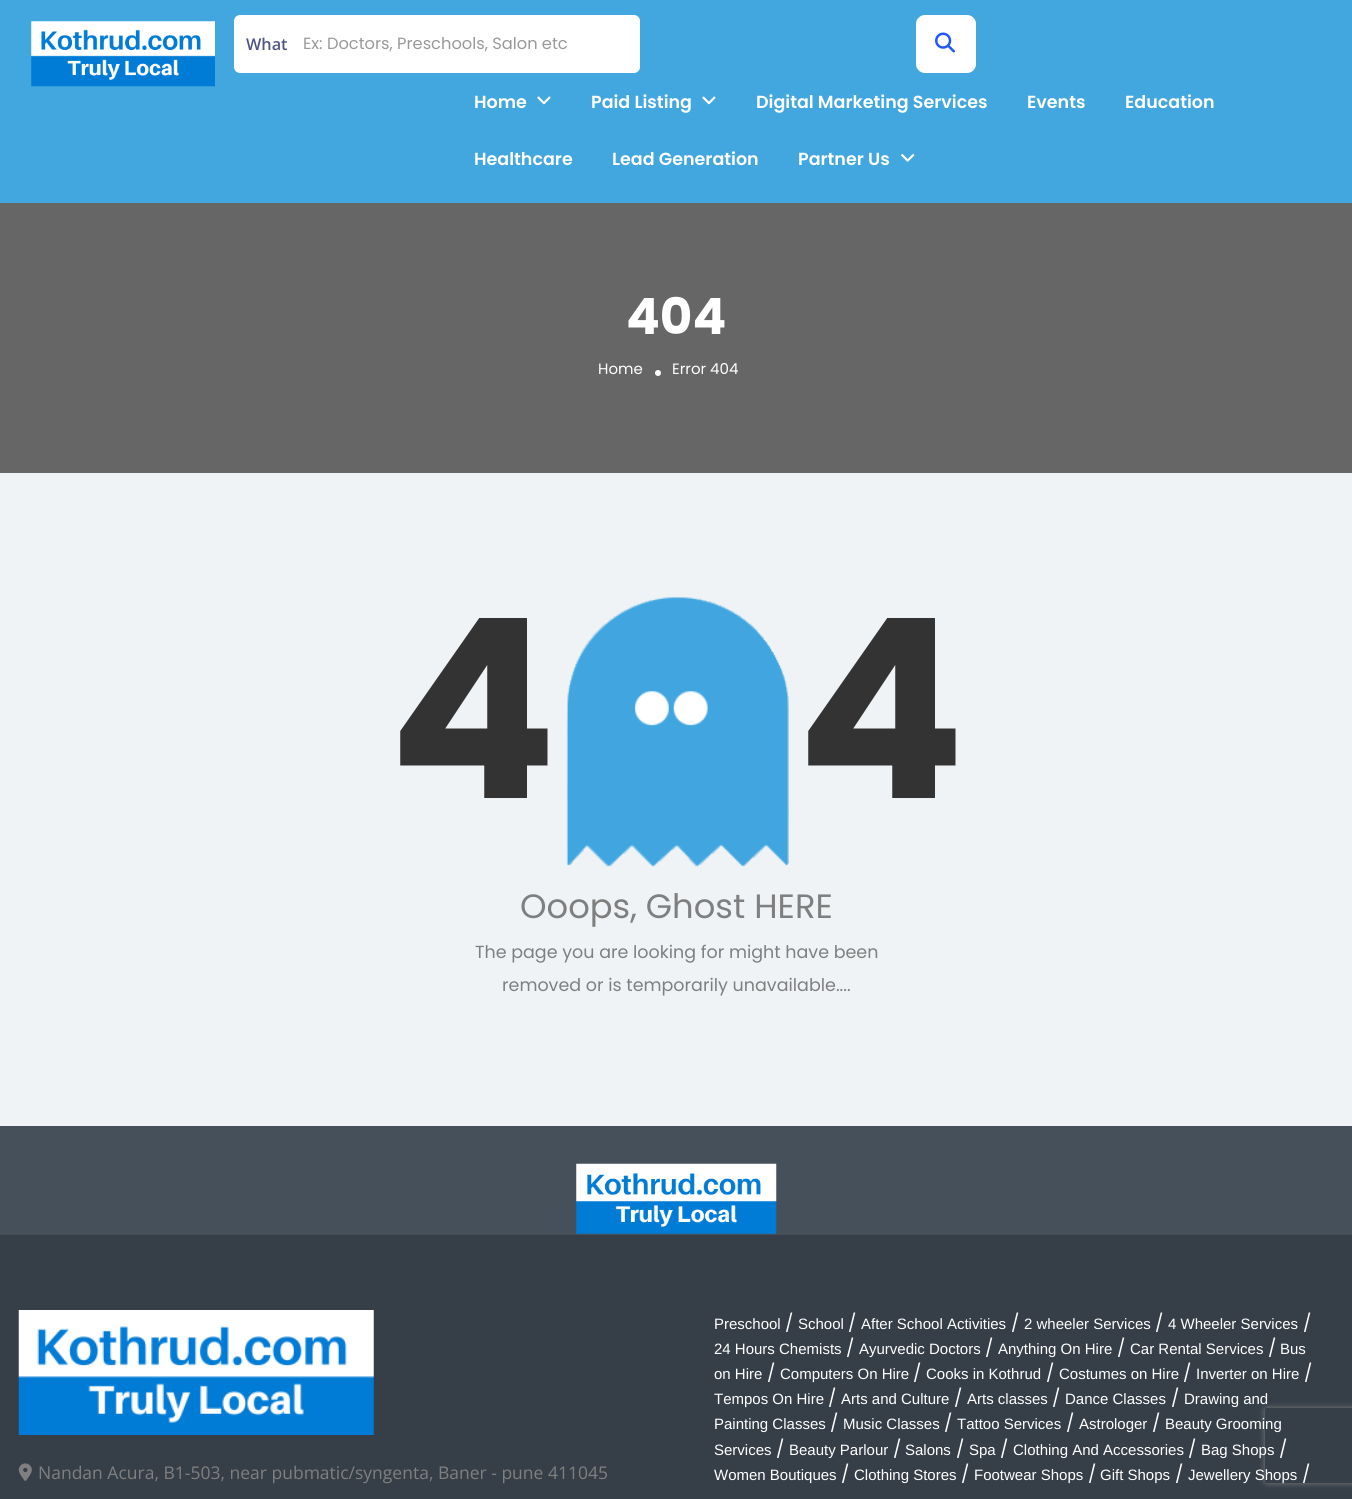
#include <cairo/cairo.h>
#include <math.h>
#include <stddef.h>

static cairo_t *cr;

static void use_color(int r, int g, int b) {
  cairo_set_source_rgb(cr, r / 255.0, g / 255.0, b / 255.0);
}

static void text(double x, double y, const char *s, const char *family, double size, int italic, int bold, int r, int g, int b) {
  cairo_select_font_face(cr, family, italic ? CAIRO_FONT_SLANT_ITALIC : CAIRO_FONT_SLANT_NORMAL,
    bold ? CAIRO_FONT_WEIGHT_BOLD : CAIRO_FONT_WEIGHT_NORMAL);
  cairo_set_font_size(cr, size);
  use_color(r, g, b);
  cairo_move_to(cr, x, y);
  cairo_show_text(cr, s);
}

static void box(double x, double y, double w, double h, int r, int g, int b) {
  use_color(r, g, b);
  cairo_rectangle(cr, x, y, w, h);
  cairo_fill(cr);
}

static void round_rect(double x, double y, double w, double h, double r) {
  cairo_new_sub_path(cr);
  cairo_arc(cr, x + w - r, y + h - r, r, 0, M_PI / 2);
  cairo_arc(cr, x + r, y + h - r, r, M_PI / 2, M_PI);
  cairo_arc(cr, x + r, y + r, r, M_PI, 1.5 * M_PI);
  cairo_arc(cr, x + w - r, y + r, r, 1.5 * M_PI, 2 * M_PI);
  cairo_close_path(cr);
}

static void shadow(double x, double y, double w, double h, double r, double blur, double alpha) {
  cairo_push_group_with_content(cr, CAIRO_CONTENT_ALPHA);
  cairo_set_operator(cr, CAIRO_OPERATOR_SOURCE);
  for (int i = 15; i >= -15 && fmin(w, h) + blur * i / 3 > 0; i -= 2) {
    double e = blur * i / 6;
    cairo_set_source_rgba(cr, 0, 0, 0, alpha * erfc((i - 1) / 8.5) / 2);
    round_rect(x - e, y - e, w + 2 * e, h + 2 * e, fmax(0, fmin(r + e + blur * .6, fmin(w, h) / 2 + e)));
    cairo_fill(cr);
  }
  cairo_pattern_t *soft = cairo_pop_group(cr);
  cairo_mask(cr, soft);
  cairo_pattern_destroy(soft);
}

static void picture(const char *path, double x, double y, double w, double h) {
  cairo_surface_t *image = cairo_image_surface_create_from_png(path);
  cairo_save(cr);
  cairo_set_source_surface(cr, image, x, y);
  cairo_rectangle(cr, x, y, w, h);
  cairo_fill(cr);
  cairo_restore(cr);
  cairo_surface_destroy(image);
}

static void draw(void) {
  use_color(239, 243, 246);
  cairo_paint(cr);
  box(0, 0, 1352, 203, 66, 167, 223);
  picture("img_01.png", 31, 21, 184, 66);
  use_color(255, 255, 255);
  round_rect(234, 15, 406, 58, 6);
  cairo_fill(cr);
  round_rect(916, 15, 60, 58, 9);
  cairo_fill(cr);
  picture("img_02.png", 935, 32, 20, 21);
  picture("img_03.png", 537, 96, 14, 9);
  picture("img_03.png", 702, 96, 14, 9);
  picture("img_04.png", 901, 154, 14, 8);
  box(0, 203, 1352, 270, 102, 102, 102);
  use_color(255, 255, 255);
  cairo_arc(cr, 658, 373, 3, 0, 2 * M_PI);
  cairo_fill(cr);
  picture("img_05.png", 566, 596, 223, 271);
  box(0, 1235, 1352, 264, 54, 63, 72);
  box(0, 1126, 1352, 109, 69, 80, 91);
  picture("img_06.png", 576, 1163, 201, 71);
  picture("img_07.png", 18, 1310, 356, 125);
  picture("img_08.png", 18, 1463, 14, 18);
  cairo_save(cr);
  cairo_set_fill_rule(cr, CAIRO_FILL_RULE_EVEN_ODD);
  cairo_new_path(cr);
  cairo_move_to(cr, 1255, 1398);
  cairo_line_to(cr, 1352, 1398);
  cairo_line_to(cr, 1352, 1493);
  cairo_line_to(cr, 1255, 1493);
  cairo_close_path(cr);
  cairo_move_to(cr, 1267.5, 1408);
  cairo_line_to(cr, 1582.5, 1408);
  cairo_curve_to(cr, 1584, 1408, 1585, 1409, 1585, 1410.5);
  cairo_line_to(cr, 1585, 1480.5);
  cairo_curve_to(cr, 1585, 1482, 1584, 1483, 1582.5, 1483);
  cairo_line_to(cr, 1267.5, 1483);
  cairo_curve_to(cr, 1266, 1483, 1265, 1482, 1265, 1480.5);
  cairo_line_to(cr, 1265, 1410.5);
  cairo_curve_to(cr, 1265, 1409, 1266, 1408, 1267.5, 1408);
  cairo_close_path(cr);
  cairo_clip(cr);
  use_color(128, 128, 128);
  shadow(1265, 1408, 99, 75, 2.5, 3, 1);
  cairo_restore(cr);
  text(246, 50, "What", "Open Sans SemiBold", 16.25, 0, 0, 79, 86, 133);
  text(303, 49, "Ex: Doctors, Preschools, Salon etc", "Poppins", 16.25, 0, 0, 153, 153, 153);
  text(474, 108, "Home", "Poppins SemiBold", 17.5, 0, 0, 255, 255, 255);
  text(591, 108, "Paid Listing", "Poppins SemiBold", 17.5, 0, 0, 255, 255, 255);
  text(756, 108, "Digital Marketing Services", "Poppins SemiBold", 17.5, 0, 0, 255, 255, 255);
  text(1027, 108, "Events", "Poppins SemiBold", 17.5, 0, 0, 255, 255, 255);
  text(1125, 108, "Education", "Poppins SemiBold", 17.5, 0, 0, 255, 255, 255);
  text(474, 165, "Healthcare", "Poppins SemiBold", 17.5, 0, 0, 255, 255, 255);
  text(612, 165, "Lead Generation", "Poppins SemiBold", 17.5, 0, 0, 255, 255, 255);
  text(798, 165, "Partner Us", "Poppins SemiBold", 17.5, 0, 0, 255, 255, 255);
  text(626, 334, "404", "Poppins", 50, 0, 1, 255, 255, 255);
  text(598, 374, "Home", "Poppins", 15, 0, 0, 255, 255, 255);
  text(672, 374, "Error 404", "Poppins", 15, 0, 0, 255, 255, 255);
  text(388, 798, "4", "Poppins", 250, 0, 1, 51, 51, 51);
  text(796, 798, "4", "Poppins", 250, 0, 1, 51, 51, 51);
  text(520, 918, "Ooops, Ghost HERE", "Poppins", 33.75, 0, 0, 127, 127, 127);
  text(475, 958, "The page you are looking for might have been", "Poppins", 17.5, 0, 0, 127, 127, 127);
  text(502, 991, "removed or is temporarily unavailable....", "Poppins", 17.5, 0, 0, 127, 127, 127);
  text(38, 1479, "Nandan Acura, B1-503, near pubmatic/syngenta, Baner - pune 411045", "Open Sans", 17.5, 0, 0, 127, 127, 127);
  text(714, 1329, "Preschool", "Liberation Sans", 15, 0, 0, 255, 255, 255);
  text(785, 1329, "/", "Poppins", 17.5, 0, 0, 255, 255, 255);
  text(798, 1329, "School", "Liberation Sans", 15, 0, 0, 255, 255, 255);
  text(848, 1329, "/", "Poppins", 17.5, 0, 0, 255, 255, 255);
  text(861, 1329, "After School Activities", "Liberation Sans", 15, 0, 0, 255, 255, 255);
  text(1011, 1329, "/", "Poppins", 17.5, 0, 0, 255, 255, 255);
  text(1024, 1329, "2 wheeler Services", "Liberation Sans", 15, 0, 0, 255, 255, 255);
  text(1155, 1329, "/", "Poppins", 17.5, 0, 0, 255, 255, 255);
  text(1168, 1329, "4 Wheeler Services", "Liberation Sans", 15, 0, 0, 255, 255, 255);
  text(1303, 1329, "/", "Poppins", 17.5, 0, 0, 255, 255, 255);
  text(714, 1354, "24 Hours Chemists", "Liberation Sans", 15, 0, 0, 255, 255, 255);
  text(846, 1354, "/", "Poppins", 17.5, 0, 0, 255, 255, 255);
  text(859, 1354, "Ayurvedic Doctors", "Liberation Sans", 15, 0, 0, 255, 255, 255);
  text(985, 1354, "/", "Poppins", 17.5, 0, 0, 255, 255, 255);
  text(998, 1354, "Anything On Hire", "Liberation Sans", 15, 0, 0, 255, 255, 255);
  text(1117, 1354, "/", "Poppins", 17.5, 0, 0, 255, 255, 255);
  text(1130, 1354, "Car Rental Services", "Liberation Sans", 15, 0, 0, 255, 255, 255);
  text(1268, 1354, "/", "Poppins", 17.5, 0, 0, 255, 255, 255);
  text(1280, 1354, "Bus", "Liberation Sans", 15, 0, 0, 255, 255, 255);
  text(714, 1379, "on Hire", "Liberation Sans", 15, 0, 0, 255, 255, 255);
  text(767, 1379, "/", "Poppins", 17.5, 0, 0, 255, 255, 255);
  text(780, 1379, "Computers On Hire", "Liberation Sans", 15, 0, 0, 255, 255, 255);
  text(913, 1379, "/", "Poppins", 17.5, 0, 0, 255, 255, 255);
  text(926, 1379, "Cooks in Kothrud", "Liberation Sans", 15, 0, 0, 255, 255, 255);
  text(1046, 1379, "/", "Poppins", 17.5, 0, 0, 255, 255, 255);
  text(1059, 1379, "Costumes on Hire", "Liberation Sans", 15, 0, 0, 255, 255, 255);
  text(1183, 1379, "/", "Poppins", 17.5, 0, 0, 255, 255, 255);
  text(1196, 1379, "Inverter on Hire", "Liberation Sans", 15, 0, 0, 255, 255, 255);
  text(1304, 1379, "/", "Poppins", 17.5, 0, 0, 255, 255, 255);
  text(714, 1404, "Tempos On Hire", "Liberation Sans", 15, 0, 0, 255, 255, 255);
  text(828, 1404, "/", "Poppins", 17.5, 0, 0, 255, 255, 255);
  text(841, 1404, "Arts and Culture", "Liberation Sans", 15, 0, 0, 255, 255, 255);
  text(954, 1404, "/", "Poppins", 17.5, 0, 0, 255, 255, 255);
  text(967, 1404, "Arts classes", "Liberation Sans", 15, 0, 0, 255, 255, 255);
  text(1052, 1404, "/", "Poppins", 17.5, 0, 0, 255, 255, 255);
  text(1065, 1404, "Dance Classes", "Liberation Sans", 15, 0, 0, 255, 255, 255);
  text(1171, 1404, "/", "Poppins", 17.5, 0, 0, 255, 255, 255);
  text(1184, 1404, "Drawing and", "Liberation Sans", 15, 0, 0, 255, 255, 255);
  text(714, 1429, "Painting Classes", "Liberation Sans", 15, 0, 0, 255, 255, 255);
  text(830, 1429, "/", "Poppins", 17.5, 0, 0, 255, 255, 255);
  text(843, 1429, "Music Classes", "Liberation Sans", 15, 0, 0, 255, 255, 255);
  text(944, 1429, "/", "Poppins", 17.5, 0, 0, 255, 255, 255);
  text(957, 1429, "Tattoo Services", "Liberation Sans", 15, 0, 0, 255, 255, 255);
  text(1066, 1429, "/", "Poppins", 17.5, 0, 0, 255, 255, 255);
  text(1079, 1429, "Astrologer", "Liberation Sans", 15, 0, 0, 255, 255, 255);
  text(1152, 1429, "/", "Poppins", 17.5, 0, 0, 255, 255, 255);
  text(1165, 1429, "Beauty Grooming", "Liberation Sans", 15, 0, 0, 255, 255, 255);
  text(714, 1455, "Services", "Liberation Sans", 15, 0, 0, 255, 255, 255);
  text(776, 1455, "/", "Poppins", 17.5, 0, 0, 255, 255, 255);
  text(789, 1455, "Beauty Parlour", "Liberation Sans", 15, 0, 0, 255, 255, 255);
  text(893, 1455, "/", "Poppins", 17.5, 0, 0, 255, 255, 255);
  text(905, 1455, "Salons", "Liberation Sans", 15, 0, 0, 255, 255, 255);
  text(956, 1455, "/", "Poppins", 17.5, 0, 0, 255, 255, 255);
  text(969, 1455, "Spa", "Liberation Sans", 15, 0, 0, 255, 255, 255);
  text(1000, 1455, "/", "Poppins", 17.5, 0, 0, 255, 255, 255);
  text(1013, 1455, "Clothing And Accessories", "Liberation Sans", 15, 0, 0, 255, 255, 255);
  text(1188, 1455, "/", "Poppins", 17.5, 0, 0, 255, 255, 255);
  text(1201, 1455, "Bag Shops", "Liberation Sans", 15, 0, 0, 255, 255, 255);
  text(1279, 1455, "/", "Poppins", 17.5, 0, 0, 255, 255, 255);
  text(714, 1480, "Women Boutiques", "Liberation Sans", 15, 0, 0, 255, 255, 255);
  text(841, 1480, "/", "Poppins", 17.5, 0, 0, 255, 255, 255);
  text(854, 1480, "Clothing Stores", "Liberation Sans", 15, 0, 0, 255, 255, 255);
  text(961, 1480, "/", "Poppins", 17.5, 0, 0, 255, 255, 255);
  text(974, 1480, "Footwear Shops", "Liberation Sans", 15, 0, 0, 255, 255, 255);
  text(1088, 1480, "/", "Poppins", 17.5, 0, 0, 255, 255, 255);
  text(1100, 1480, "Gift Shops", "Liberation Sans", 15, 0, 0, 255, 255, 255);
  text(1175, 1480, "/", "Poppins", 17.5, 0, 0, 255, 255, 255);
  text(1188, 1480, "Jewellery Shops", "Liberation Sans", 15, 0, 0, 255, 255, 255);
  text(1302, 1480, "/", "Poppins", 17.5, 0, 0, 255, 255, 255);
}

int main(void) {
  cairo_surface_t *surface = cairo_image_surface_create(CAIRO_FORMAT_RGB24, 1352, 1499);
  cr = cairo_create(surface);
  cairo_font_options_t *options = cairo_font_options_create();
  cairo_font_options_set_hint_metrics(options, CAIRO_HINT_METRICS_OFF);
  cairo_font_options_set_hint_style(options, CAIRO_HINT_STYLE_NONE);
  cairo_set_font_options(cr, options);
  cairo_set_miter_limit(cr, 4);
  draw();
  cairo_surface_write_to_png(surface, "out.png");
  cairo_font_options_destroy(options);
  cairo_destroy(cr);
  cairo_surface_destroy(surface);
  return 0;
}
